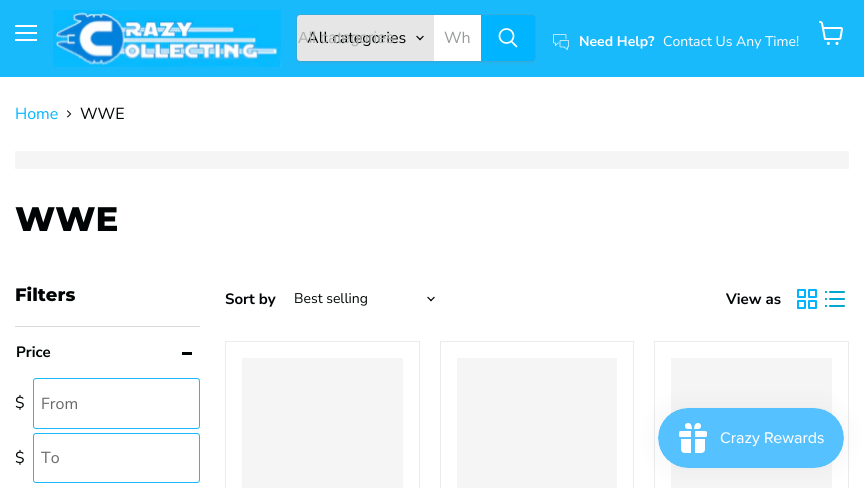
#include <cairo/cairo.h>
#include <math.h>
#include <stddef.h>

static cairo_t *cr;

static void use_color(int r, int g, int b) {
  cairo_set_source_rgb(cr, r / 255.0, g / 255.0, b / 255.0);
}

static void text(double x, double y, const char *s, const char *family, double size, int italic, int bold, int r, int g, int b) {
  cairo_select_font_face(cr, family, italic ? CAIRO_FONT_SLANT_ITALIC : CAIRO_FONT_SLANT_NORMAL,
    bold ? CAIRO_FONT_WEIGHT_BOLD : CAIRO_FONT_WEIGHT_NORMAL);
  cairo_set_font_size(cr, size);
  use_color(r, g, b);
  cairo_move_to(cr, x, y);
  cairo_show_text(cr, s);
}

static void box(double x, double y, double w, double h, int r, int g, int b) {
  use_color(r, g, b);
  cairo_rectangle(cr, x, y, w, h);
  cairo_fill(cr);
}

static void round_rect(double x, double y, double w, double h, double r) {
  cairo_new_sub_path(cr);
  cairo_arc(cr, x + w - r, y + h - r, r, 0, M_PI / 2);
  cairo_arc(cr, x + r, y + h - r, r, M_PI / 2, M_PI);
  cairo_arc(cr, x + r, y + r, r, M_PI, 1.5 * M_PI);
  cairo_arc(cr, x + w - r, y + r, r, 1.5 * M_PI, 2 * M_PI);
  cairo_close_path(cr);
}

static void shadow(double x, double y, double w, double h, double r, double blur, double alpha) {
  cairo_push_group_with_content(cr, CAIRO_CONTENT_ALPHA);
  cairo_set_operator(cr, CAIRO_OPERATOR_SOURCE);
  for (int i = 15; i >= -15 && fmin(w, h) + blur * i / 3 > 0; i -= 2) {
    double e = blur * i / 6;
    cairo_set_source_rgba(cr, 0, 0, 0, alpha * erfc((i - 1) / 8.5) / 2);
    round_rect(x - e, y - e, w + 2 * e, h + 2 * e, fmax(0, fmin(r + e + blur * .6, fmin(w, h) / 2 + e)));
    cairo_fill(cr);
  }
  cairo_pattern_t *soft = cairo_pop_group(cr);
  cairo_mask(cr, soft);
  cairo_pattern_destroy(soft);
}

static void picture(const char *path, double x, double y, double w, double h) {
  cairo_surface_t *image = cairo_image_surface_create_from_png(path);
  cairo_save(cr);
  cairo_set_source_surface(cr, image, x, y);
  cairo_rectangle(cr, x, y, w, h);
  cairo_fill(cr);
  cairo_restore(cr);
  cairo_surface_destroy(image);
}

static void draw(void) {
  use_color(255, 255, 255);
  cairo_paint(cr);
  box(0, 0, 864, 77, 25, 186, 252);
  box(15, 25, 22, 2, 255, 252, 252);
  box(15, 32, 22, 2, 255, 252, 252);
  box(15, 39, 22, 2, 255, 252, 252);
  picture("img_01.png", 53, 10, 228, 57);
  use_color(128, 128, 128);
  shadow(296, 16, 240, 48, 4, 1.5, 0.11);
  round_rect(296.5, 14.5, 239, 47, 3.5);
  cairo_set_source_rgba(cr, 0.502, 0.502, 0.502, 0.2);
  cairo_set_line_width(cr, 1);
  cairo_stroke(cr);
  use_color(230, 230, 230);
  cairo_new_path(cr);
  cairo_move_to(cr, 300, 15);
  cairo_line_to(cr, 434, 15);
  cairo_line_to(cr, 434, 61);
  cairo_line_to(cr, 300, 61);
  cairo_curve_to(cr, 298.5, 61, 297, 59.5, 297, 58);
  cairo_line_to(cr, 297, 18);
  cairo_curve_to(cr, 297, 16.5, 298.5, 15, 300, 15);
  cairo_close_path(cr);
  cairo_fill(cr);
  picture("img_02.png", 416, 35, 8, 6);
  box(434, 15, 47, 46, 255, 255, 255);
  use_color(0, 180, 255);
  cairo_new_path(cr);
  cairo_move_to(cr, 481.5, 15.5);
  cairo_line_to(cr, 532, 15.5);
  cairo_curve_to(cr, 533.5, 15.5, 534.5, 16.5, 534.5, 18);
  cairo_line_to(cr, 534.5, 58);
  cairo_curve_to(cr, 534.5, 59.5, 533.5, 60.5, 532, 60.5);
  cairo_line_to(cr, 481.5, 60.5);
  cairo_close_path(cr);
  cairo_fill_preserve(cr);
  cairo_stroke(cr);
  cairo_new_path(cr);
  cairo_move_to(cr, 516.5, 46.5);
  cairo_line_to(cr, 511.5, 41.5);
  use_color(255, 255, 255);
  cairo_set_line_width(cr, 1.7);
  cairo_set_line_cap(cr, CAIRO_LINE_CAP_ROUND);
  cairo_stroke(cr);
  cairo_arc(cr, 506.5, 36, 7, 0, 2 * M_PI);
  cairo_set_line_cap(cr, CAIRO_LINE_CAP_BUTT);
  cairo_stroke(cr);
  picture("img_03.png", 553, 34, 16, 16);
  picture("img_04.png", 819, 21, 24, 24);
  picture("img_05.png", 67, 110, 5, 8);
  box(15, 151, 834, 18, 245, 245, 245);
  box(15, 326, 185, 1, 217, 217, 217);
  box(182, 352, 10, 3, 0, 4, 5);
  round_rect(33.5, 378.5, 166, 50, 2.5);
  use_color(25, 186, 252);
  cairo_set_line_width(cr, 1);
  cairo_stroke(cr);
  round_rect(33.5, 433.5, 166, 49, 2.5);
  cairo_stroke(cr);
  picture("img_06.png", 427, 296, 8, 6);
  picture("img_07.png", 797, 289, 20, 20);
  picture("img_08.png", 825, 291, 20, 16);
  cairo_rectangle(cr, 225.5, 341.5, 194, 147);
  use_color(235, 235, 235);
  cairo_stroke(cr);
  box(242, 358, 161, 130, 245, 245, 245);
  cairo_rectangle(cr, 440.5, 341.5, 193, 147);
  use_color(235, 235, 235);
  cairo_stroke(cr);
  box(457, 358, 160, 130, 245, 245, 245);
  cairo_rectangle(cr, 654.5, 341.5, 194, 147);
  use_color(235, 235, 235);
  cairo_stroke(cr);
  box(671, 358, 161, 130, 245, 245, 245);
  use_color(0, 0, 0);
  shadow(658, 408, 186, 60, 30, 12.5, 0.05);
  picture("img_09.png", 658, 408, 186, 60);
  text(307, 43, "All categories", "Nunito Sans", 16, 0, 0, 0, 4, 5);
  text(298, 43, "All categories", "Liberation Sans", 16, 0, 0, 176, 177, 177);
  text(444, 43, "Wh", "Nunito Sans", 16, 0, 0, 153, 155, 155);
  text(579, 46, "Need Help?", "Nunito Sans", 14, 0, 1, 255, 252, 252);
  text(663, 46, "Contact Us Any Time!", "Nunito Sans", 14, 0, 0, 255, 252, 252);
  text(15, 119, "Home", "Nunito Sans", 16, 0, 0, 0, 180, 255);
  text(80, 119, "WWE", "Nunito Sans", 16, 0, 0, 0, 4, 5);
  text(15, 231, "WWE", "Montserrat ExtraBold", 34, 0, 0, 0, 4, 5);
  text(15, 301, "Filters", "Montserrat ExtraBold", 18, 0, 0, 0, 4, 5);
  text(16, 357, "Price", "Nunito Sans", 15, 0, 1, 0, 4, 5);
  text(15, 408, "$", "Nunito Sans", 16, 0, 0, 0, 4, 5);
  text(41, 409, "From", "Nunito Sans", 16, 0, 0, 102, 104, 105);
  text(15, 463, "$", "Nunito Sans", 16, 0, 0, 0, 4, 5);
  text(41, 463, "To", "Nunito Sans", 16, 0, 0, 102, 104, 105);
  text(225, 304, "Sort by", "Nunito Sans", 15, 0, 1, 0, 4, 5);
  text(294, 303, "Best selling", "Nunito Sans", 14, 0, 0, 0, 4, 5);
  text(726, 304, "View as", "Nunito Sans", 15, 0, 1, 0, 4, 5);
}

int main(void) {
  cairo_surface_t *surface = cairo_image_surface_create(CAIRO_FORMAT_RGB24, 864, 488);
  cr = cairo_create(surface);
  cairo_font_options_t *options = cairo_font_options_create();
  cairo_font_options_set_hint_metrics(options, CAIRO_HINT_METRICS_OFF);
  cairo_font_options_set_hint_style(options, CAIRO_HINT_STYLE_NONE);
  cairo_set_font_options(cr, options);
  cairo_set_miter_limit(cr, 4);
  draw();
  cairo_surface_write_to_png(surface, "out.png");
  cairo_font_options_destroy(options);
  cairo_destroy(cr);
  cairo_surface_destroy(surface);
  return 0;
}
